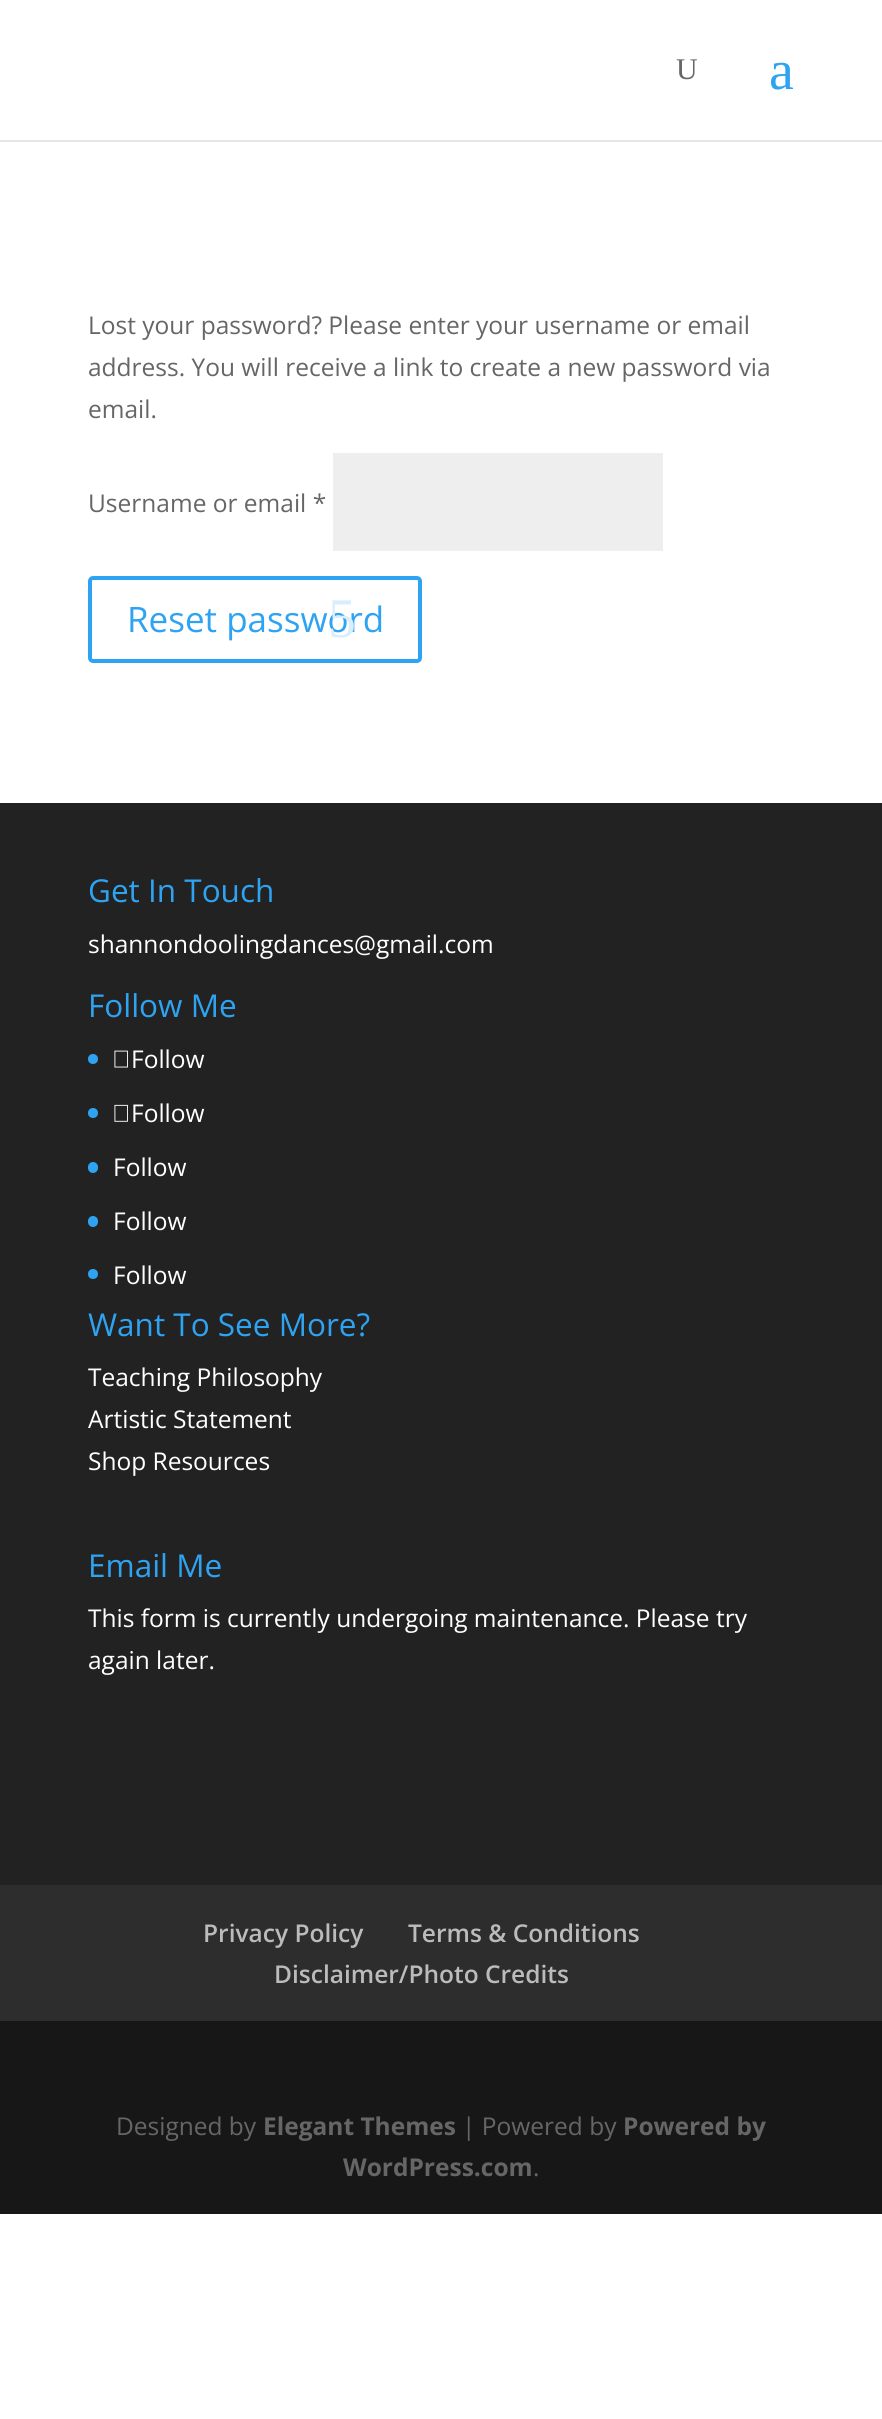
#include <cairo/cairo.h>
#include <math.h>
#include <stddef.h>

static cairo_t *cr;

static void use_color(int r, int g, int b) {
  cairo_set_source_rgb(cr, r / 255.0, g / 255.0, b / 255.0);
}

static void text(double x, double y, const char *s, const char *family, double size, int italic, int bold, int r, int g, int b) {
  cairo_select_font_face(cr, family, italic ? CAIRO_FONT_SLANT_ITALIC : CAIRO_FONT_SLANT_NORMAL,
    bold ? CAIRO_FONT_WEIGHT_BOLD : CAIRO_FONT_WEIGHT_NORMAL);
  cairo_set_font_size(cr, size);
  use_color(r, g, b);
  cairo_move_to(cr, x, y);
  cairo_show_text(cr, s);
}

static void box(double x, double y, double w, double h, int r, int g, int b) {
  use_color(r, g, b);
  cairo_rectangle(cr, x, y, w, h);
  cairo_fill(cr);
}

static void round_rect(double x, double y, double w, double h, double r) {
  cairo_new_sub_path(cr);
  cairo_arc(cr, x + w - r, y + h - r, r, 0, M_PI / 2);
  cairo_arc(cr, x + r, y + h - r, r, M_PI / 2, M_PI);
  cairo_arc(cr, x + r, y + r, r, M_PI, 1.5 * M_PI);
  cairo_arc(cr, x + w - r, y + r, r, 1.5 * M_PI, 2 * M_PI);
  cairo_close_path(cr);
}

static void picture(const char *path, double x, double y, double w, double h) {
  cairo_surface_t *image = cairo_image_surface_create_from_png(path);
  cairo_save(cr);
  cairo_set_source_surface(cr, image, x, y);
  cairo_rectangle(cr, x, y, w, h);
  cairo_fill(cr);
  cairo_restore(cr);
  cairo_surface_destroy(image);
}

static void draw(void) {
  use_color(255, 255, 255);
  cairo_paint(cr);
  box(0, 140, 882, 2, 230, 230, 230);
  box(333, 453, 330, 98, 238, 238, 238);
  round_rect(90, 578, 330, 83, 3);
  use_color(46, 163, 242);
  cairo_set_line_width(cr, 4);
  cairo_stroke(cr);
  box(0, 803, 882, 1082, 34, 34, 34);
  use_color(46, 163, 242);
  cairo_arc(cr, 93, 1059, 5, 0, 2 * M_PI);
  cairo_fill(cr);
  picture("img_01.png", 114, 1050, 14, 18);
  cairo_arc(cr, 93, 1113, 5, 0, 2 * M_PI);
  cairo_fill(cr);
  picture("img_02.png", 114, 1104, 14, 18);
  round_rect(88, 1162, 10, 11, 5);
  cairo_fill(cr);
  round_rect(88, 1216, 10, 11, 5);
  cairo_fill(cr);
  cairo_arc(cr, 93, 1274, 5, 0, 2 * M_PI);
  cairo_fill(cr);
  box(0, 1885, 882, 136, 45, 45, 45);
  box(0, 2021, 882, 193, 23, 23, 23);
  text(676, 79, "U", "Liberation Serif", 30, 0, 0, 102, 102, 102);
  text(769, 89, "a", "Liberation Serif", 56, 0, 0, 46, 163, 242);
  text(88, 334, "Lost your password? Please enter your username or email", "Open Sans", 24.5, 0, 0, 102, 102, 102);
  text(88, 376, "address. You will receive a link to create a new password via", "Open Sans", 24.5, 0, 0, 102, 102, 102);
  text(88, 418, "email.", "Open Sans", 24.5, 0, 0, 102, 102, 102);
  text(88, 512, "Username or email *", "Open Sans", 24.5, 0, 0, 102, 102, 102);
  text(127, 632, "Reset password", "Open Sans", 35, 0, 0, 46, 163, 242);
  text(328, 637, "5", "Liberation Serif", 56, 0, 0, 217, 238, 253);
  text(88, 902, "Get In Touch", "Open Sans", 31.5, 0, 0, 46, 163, 242);
  text(88, 953, "shannondoolingdances@gmail.com", "Open Sans", 24.5, 0, 0, 255, 255, 255);
  text(88, 1017, "Follow Me", "Open Sans", 31.5, 0, 0, 46, 163, 242);
  text(131, 1068, "Follow", "Open Sans", 24.5, 0, 0, 255, 255, 255);
  text(131, 1122, "Follow", "Open Sans", 24.5, 0, 0, 255, 255, 255);
  text(113, 1176, "Follow", "Open Sans", 24.5, 0, 0, 255, 255, 255);
  text(113, 1230, "Follow", "Open Sans", 24.5, 0, 0, 255, 255, 255);
  text(113, 1284, "Follow", "Open Sans", 24.5, 0, 0, 255, 255, 255);
  text(88, 1336, "Want To See More?", "Open Sans", 31.5, 0, 0, 46, 163, 242);
  text(88, 1386, "Teaching Philosophy", "Open Sans", 24.5, 0, 0, 255, 255, 255);
  text(88, 1428, "Artistic Statement", "Open Sans", 24.5, 0, 0, 255, 255, 255);
  text(88, 1470, "Shop Resources", "Open Sans", 24.5, 0, 0, 255, 255, 255);
  text(88, 1577, "Email Me", "Open Sans", 31.5, 0, 0, 46, 163, 242);
  text(88, 1627, "This form is currently undergoing maintenance. Please try", "Open Sans", 24.5, 0, 0, 255, 255, 255);
  text(88, 1669, "again later.", "Open Sans", 24.5, 0, 0, 255, 255, 255);
  text(203, 1942, "Privacy Policy", "Open Sans SemiBold", 24.5, 0, 0, 187, 187, 187);
  text(408, 1942, "Terms & Conditions", "Open Sans SemiBold", 24.5, 0, 0, 187, 187, 187);
  text(274, 1983, "Disclaimer/Photo Credits", "Open Sans SemiBold", 24.5, 0, 0, 187, 187, 187);
  text(116, 2135, "Designed by", "Open Sans", 24.5, 0, 0, 102, 102, 102);
  text(263, 2135, "Elegant Themes", "Open Sans", 24.5, 0, 1, 102, 102, 102);
  text(462, 2135, "| Powered by", "Open Sans", 24.5, 0, 0, 102, 102, 102);
  text(623, 2135, "Powered by", "Open Sans", 24.5, 0, 1, 102, 102, 102);
  text(343, 2176, "WordPress.com", "Open Sans", 24.5, 0, 1, 102, 102, 102);
  text(533, 2176, ".", "Open Sans", 24.5, 0, 0, 102, 102, 102);
}

int main(void) {
  cairo_surface_t *surface = cairo_image_surface_create(CAIRO_FORMAT_RGB24, 882, 2419);
  cr = cairo_create(surface);
  cairo_font_options_t *options = cairo_font_options_create();
  cairo_font_options_set_hint_metrics(options, CAIRO_HINT_METRICS_OFF);
  cairo_font_options_set_hint_style(options, CAIRO_HINT_STYLE_NONE);
  cairo_set_font_options(cr, options);
  cairo_set_miter_limit(cr, 4);
  draw();
  cairo_surface_write_to_png(surface, "out.png");
  cairo_font_options_destroy(options);
  cairo_destroy(cr);
  cairo_surface_destroy(surface);
  return 0;
}
